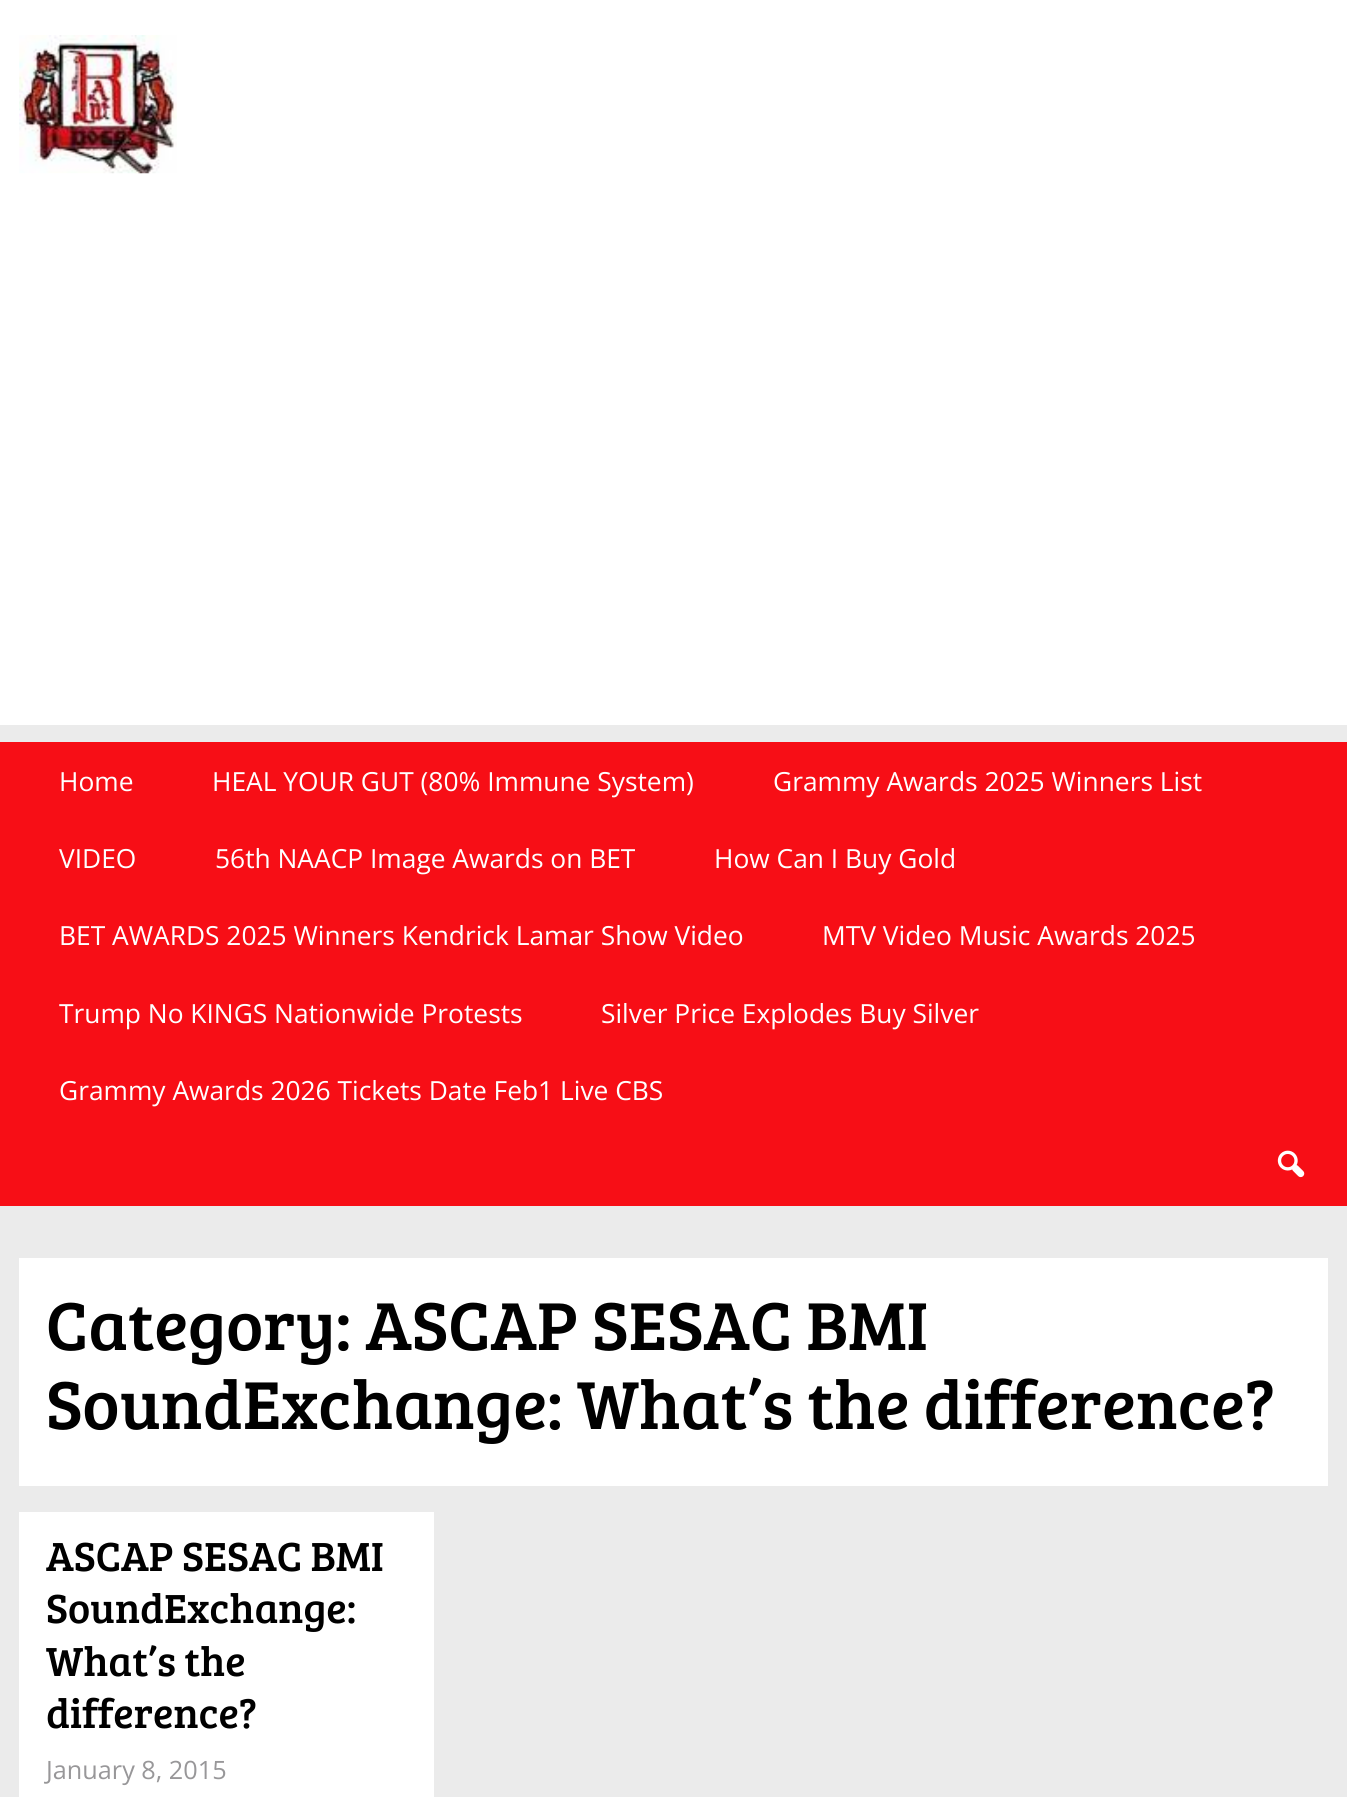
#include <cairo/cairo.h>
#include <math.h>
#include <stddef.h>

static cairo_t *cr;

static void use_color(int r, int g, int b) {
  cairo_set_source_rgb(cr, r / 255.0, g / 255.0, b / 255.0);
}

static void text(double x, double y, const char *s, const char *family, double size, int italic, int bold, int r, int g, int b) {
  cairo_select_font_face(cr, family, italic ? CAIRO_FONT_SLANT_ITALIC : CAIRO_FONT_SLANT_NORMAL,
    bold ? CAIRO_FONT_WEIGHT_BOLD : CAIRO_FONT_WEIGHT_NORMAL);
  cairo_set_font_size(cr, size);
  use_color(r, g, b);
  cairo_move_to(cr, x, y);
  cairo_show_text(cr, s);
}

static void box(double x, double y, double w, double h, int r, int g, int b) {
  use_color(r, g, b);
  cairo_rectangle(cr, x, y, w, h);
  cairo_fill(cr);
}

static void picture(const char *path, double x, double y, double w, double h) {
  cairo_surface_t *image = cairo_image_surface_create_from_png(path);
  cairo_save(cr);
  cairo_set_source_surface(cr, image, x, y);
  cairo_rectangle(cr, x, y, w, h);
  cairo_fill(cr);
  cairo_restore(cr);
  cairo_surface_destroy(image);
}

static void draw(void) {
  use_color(235, 235, 235);
  cairo_paint(cr);
  box(0, 0, 1347, 725, 255, 255, 255);
  picture("img_01.png", 19, 35, 158, 139);
  box(0, 742, 1347, 464, 247, 14, 22);
  picture("img_02.png", 1277, 1150, 28, 28);
  box(19, 1258, 1309, 228, 255, 255, 255);
  box(19, 1512, 415, 285, 255, 255, 255);
  text(59, 791, "Home", "Open Sans", 26.35, 0, 0, 255, 255, 255);
  text(212, 791, "HEAL YOUR GUT (80% Immune System)", "Open Sans", 26.35, 0, 0, 255, 255, 255);
  text(773, 791, "Grammy Awards 2025 Winners List", "Open Sans", 26.35, 0, 0, 255, 255, 255);
  text(59, 868, "VIDEO", "Open Sans", 26.35, 0, 0, 255, 255, 255);
  text(215, 868, "56th NAACP Image Awards on BET", "Open Sans", 26.35, 0, 0, 255, 255, 255);
  text(714, 868, "How Can I Buy Gold", "Open Sans", 26.35, 0, 0, 255, 255, 255);
  text(59, 945, "BET AWARDS 2025 Winners Kendrick Lamar Show Video", "Open Sans", 26.35, 0, 0, 255, 255, 255);
  text(822, 945, "MTV Video Music Awards 2025", "Open Sans", 26.35, 0, 0, 255, 255, 255);
  text(59, 1023, "Trump No KINGS Nationwide Protests", "Open Sans", 26.35, 0, 0, 255, 255, 255);
  text(601, 1023, "Silver Price Explodes Buy Silver", "Open Sans", 26.35, 0, 0, 255, 255, 255);
  text(59, 1100, "Grammy Awards 2026 Tickets Date Feb1 Live CBS", "Open Sans", 26.35, 0, 0, 255, 255, 255);
  text(46, 1350, "Category: ASCAP SESAC BMI", "Bree Serif", 70, 0, 0, 0, 0, 0);
  text(46, 1429, "SoundExchange: What’s the difference?", "Bree Serif", 70, 0, 0, 0, 0, 0);
  text(46, 1571, "ASCAP SESAC BMI", "Bree Serif", 42, 0, 0, 0, 0, 0);
  text(46, 1623, "SoundExchange:", "Bree Serif", 42, 0, 0, 0, 0, 0);
  text(46, 1676, "What’s the", "Bree Serif", 42, 0, 0, 0, 0, 0);
  text(46, 1728, "difference?", "Bree Serif", 42, 0, 0, 0, 0, 0);
  text(46, 1779, "January 8, 2015", "Open Sans", 25.25, 0, 0, 152, 151, 153);
}

int main(void) {
  cairo_surface_t *surface = cairo_image_surface_create(CAIRO_FORMAT_RGB24, 1347, 1797);
  cr = cairo_create(surface);
  cairo_font_options_t *options = cairo_font_options_create();
  cairo_font_options_set_hint_metrics(options, CAIRO_HINT_METRICS_OFF);
  cairo_font_options_set_hint_style(options, CAIRO_HINT_STYLE_NONE);
  cairo_set_font_options(cr, options);
  cairo_set_miter_limit(cr, 4);
  draw();
  cairo_surface_write_to_png(surface, "out.png");
  cairo_font_options_destroy(options);
  cairo_destroy(cr);
  cairo_surface_destroy(surface);
  return 0;
}
